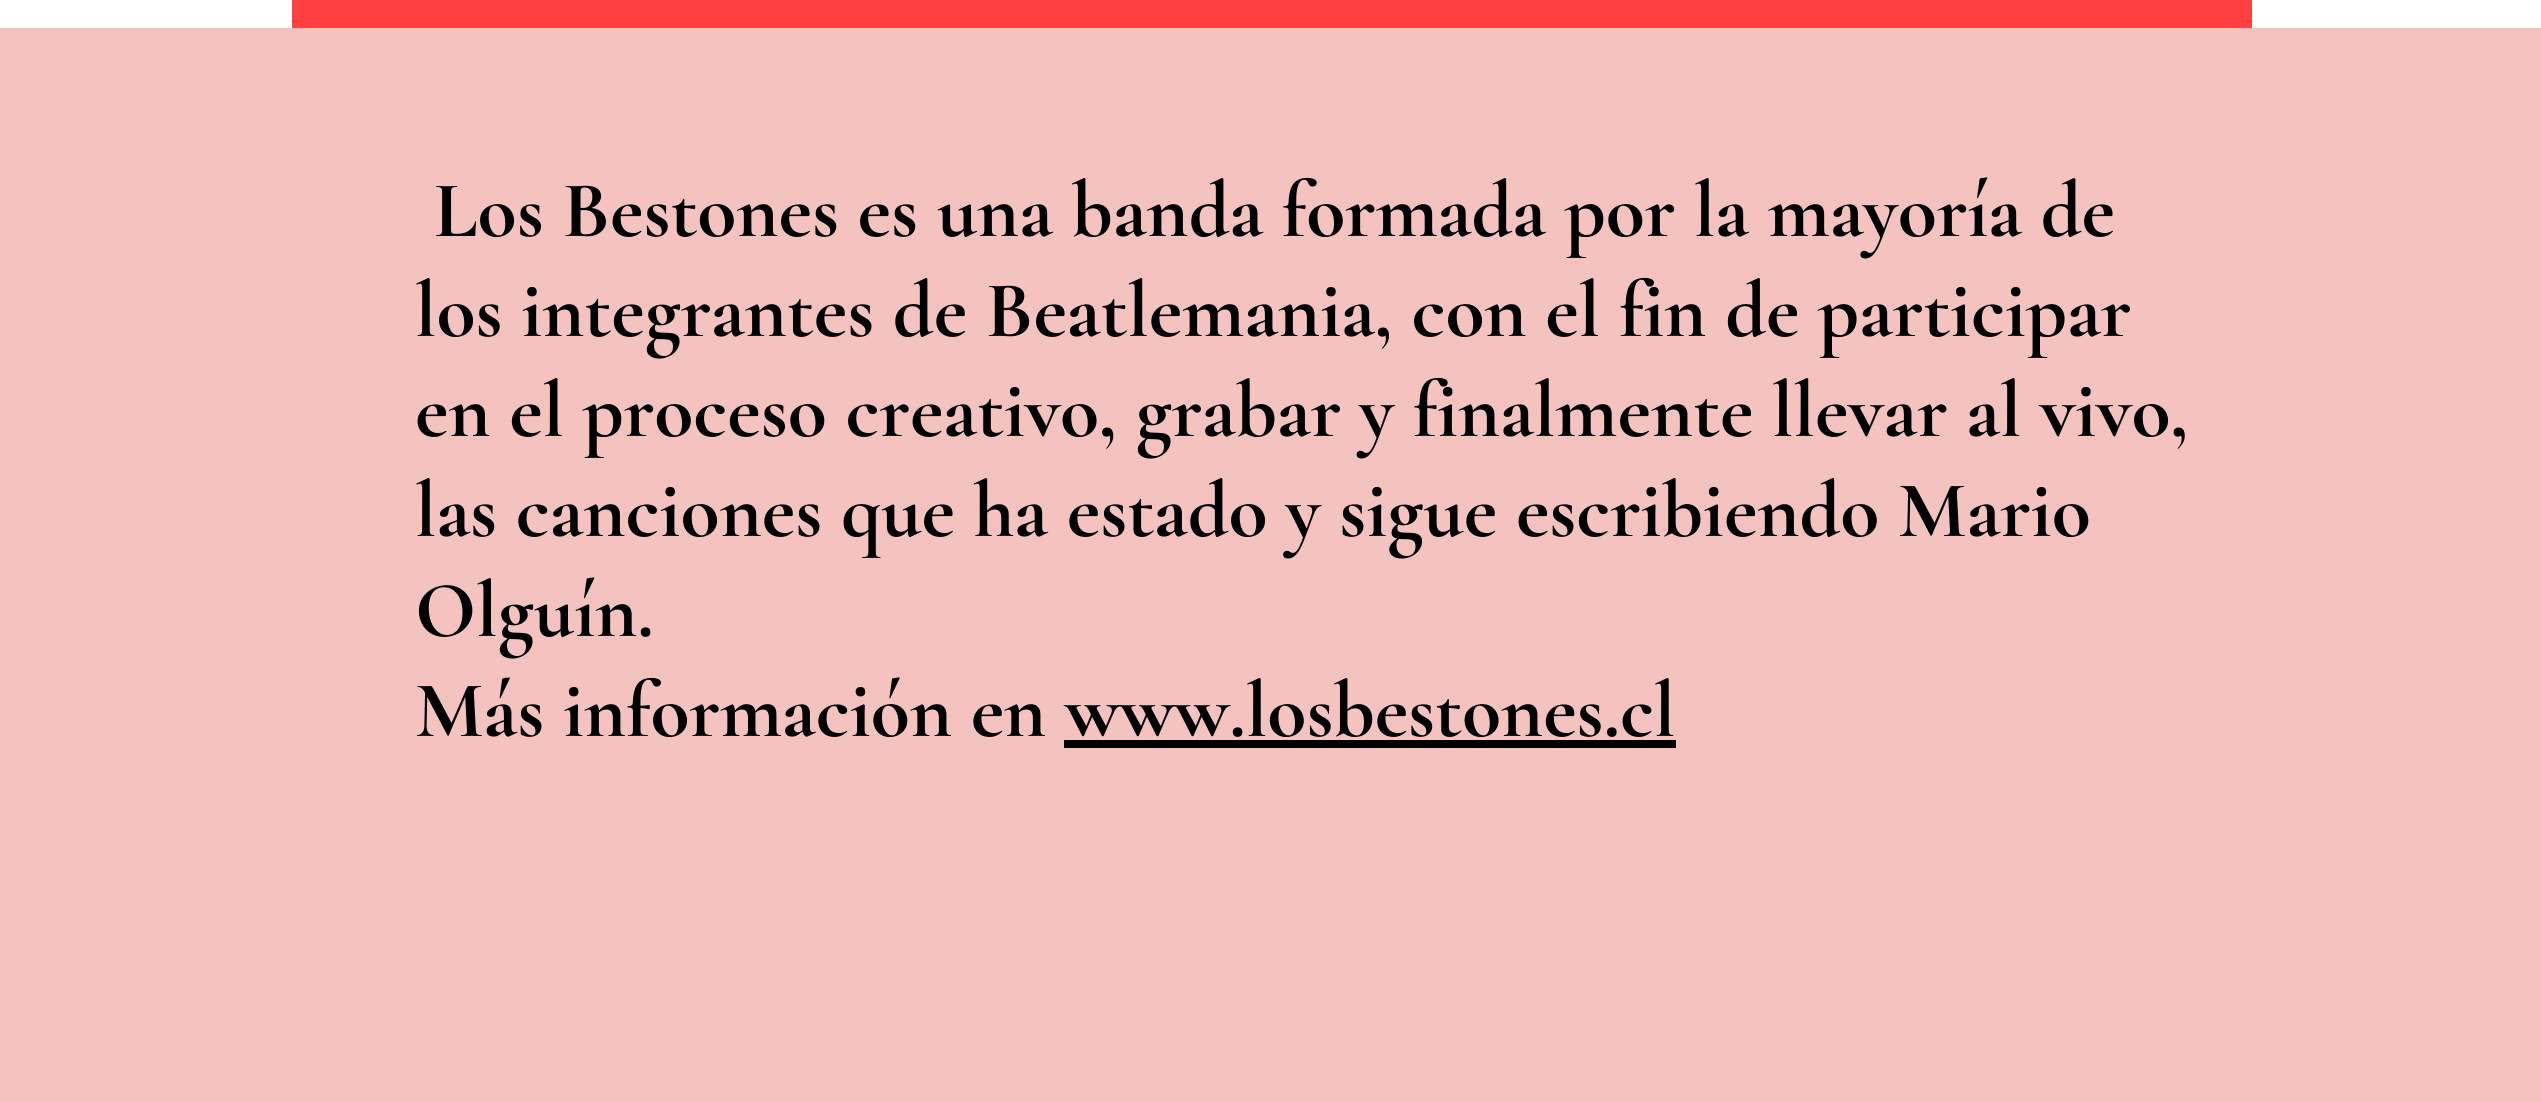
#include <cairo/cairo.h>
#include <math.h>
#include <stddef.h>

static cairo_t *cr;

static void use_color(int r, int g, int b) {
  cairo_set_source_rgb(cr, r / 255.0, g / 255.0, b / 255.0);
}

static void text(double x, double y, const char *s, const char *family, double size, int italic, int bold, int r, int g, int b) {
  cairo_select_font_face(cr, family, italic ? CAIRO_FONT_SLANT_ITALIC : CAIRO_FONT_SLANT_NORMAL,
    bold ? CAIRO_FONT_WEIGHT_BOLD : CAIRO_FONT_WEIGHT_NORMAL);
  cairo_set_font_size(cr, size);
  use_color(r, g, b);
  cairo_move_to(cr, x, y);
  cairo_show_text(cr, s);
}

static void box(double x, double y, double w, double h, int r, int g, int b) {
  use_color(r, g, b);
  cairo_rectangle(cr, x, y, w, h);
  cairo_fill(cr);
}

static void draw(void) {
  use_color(255, 255, 255);
  cairo_paint(cr);
  box(292, 0, 1960, 28, 255, 64, 64);
  box(0, 28, 2541, 1074, 244, 195, 191);
  box(1064, 740, 612, 8, 0, 0, 0);
  text(434, 236, "Los Bestones es una banda formada por la mayoría de", "Cormorant Garamond", 80, 0, 1, 0, 0, 0);
  text(415, 336, "los integrantes de Beatlemania, con el fin de participar", "Cormorant Garamond", 80, 0, 1, 0, 0, 0);
  text(415, 436, "en el proceso creativo, grabar y finalmente llevar al vivo,", "Cormorant Garamond", 80, 0, 1, 0, 0, 0);
  text(415, 536, "las canciones que ha estado y sigue escribiendo Mario", "Cormorant Garamond", 80, 0, 1, 0, 0, 0);
  text(415, 636, "Olguín.", "Cormorant Garamond", 80, 0, 1, 0, 0, 0);
  text(415, 736, "Más información en www.losbestones.cl", "Cormorant Garamond", 80, 0, 1, 0, 0, 0);
}

int main(void) {
  cairo_surface_t *surface = cairo_image_surface_create(CAIRO_FORMAT_RGB24, 2541, 1102);
  cr = cairo_create(surface);
  cairo_font_options_t *options = cairo_font_options_create();
  cairo_font_options_set_hint_metrics(options, CAIRO_HINT_METRICS_OFF);
  cairo_font_options_set_hint_style(options, CAIRO_HINT_STYLE_NONE);
  cairo_set_font_options(cr, options);
  cairo_set_miter_limit(cr, 4);
  draw();
  cairo_surface_write_to_png(surface, "out.png");
  cairo_font_options_destroy(options);
  cairo_destroy(cr);
  cairo_surface_destroy(surface);
  return 0;
}
